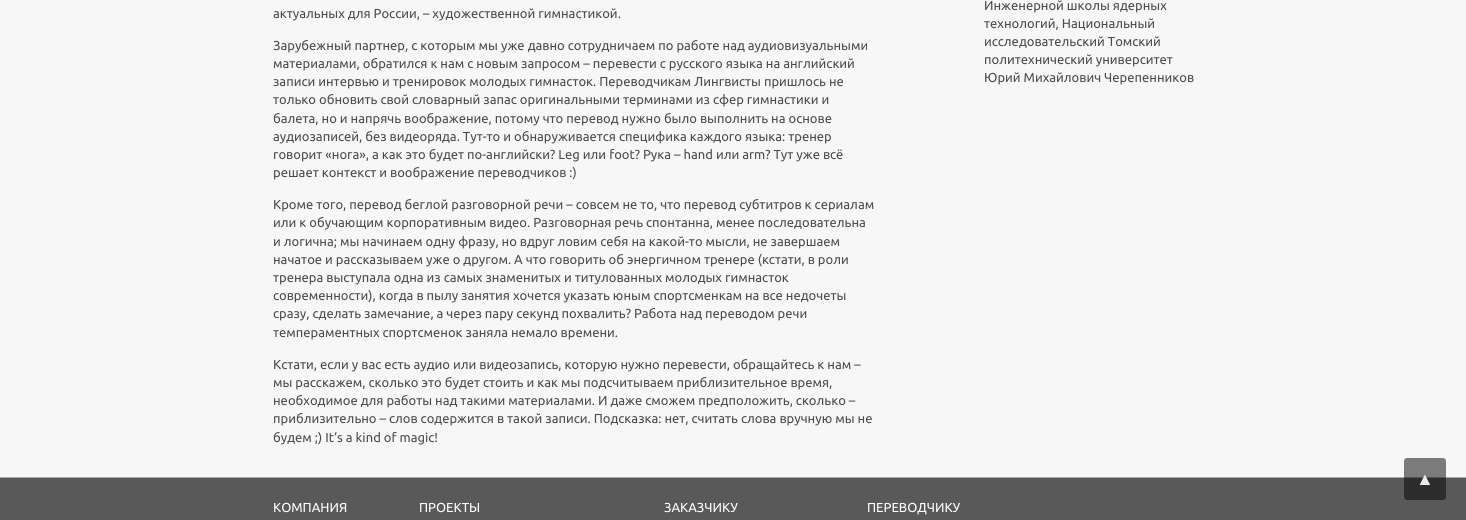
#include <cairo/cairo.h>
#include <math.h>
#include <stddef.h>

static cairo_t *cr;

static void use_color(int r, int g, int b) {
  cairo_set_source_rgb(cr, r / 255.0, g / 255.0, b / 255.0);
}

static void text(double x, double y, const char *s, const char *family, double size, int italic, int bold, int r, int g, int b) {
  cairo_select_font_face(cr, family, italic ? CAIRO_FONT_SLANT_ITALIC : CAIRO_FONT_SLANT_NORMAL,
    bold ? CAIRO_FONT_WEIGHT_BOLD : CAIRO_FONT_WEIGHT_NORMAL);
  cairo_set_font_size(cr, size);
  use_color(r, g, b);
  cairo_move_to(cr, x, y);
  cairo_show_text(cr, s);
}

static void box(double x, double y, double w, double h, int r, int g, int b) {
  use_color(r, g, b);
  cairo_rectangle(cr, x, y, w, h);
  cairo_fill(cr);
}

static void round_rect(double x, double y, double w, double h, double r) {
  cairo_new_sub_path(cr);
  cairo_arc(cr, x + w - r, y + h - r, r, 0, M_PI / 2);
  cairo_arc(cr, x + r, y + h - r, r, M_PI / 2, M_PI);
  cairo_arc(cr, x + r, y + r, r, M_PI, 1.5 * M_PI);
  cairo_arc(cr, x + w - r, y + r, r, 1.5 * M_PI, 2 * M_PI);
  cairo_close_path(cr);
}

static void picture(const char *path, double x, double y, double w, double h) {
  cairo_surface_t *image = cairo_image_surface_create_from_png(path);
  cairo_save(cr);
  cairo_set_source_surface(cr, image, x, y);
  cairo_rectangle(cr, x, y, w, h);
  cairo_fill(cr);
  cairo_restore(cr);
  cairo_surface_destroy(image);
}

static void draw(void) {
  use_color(247, 247, 247);
  cairo_paint(cr);
  box(0, 478, 1466, 42, 89, 89, 89);
  box(0, 477, 1466, 1, 171, 170, 165);
  cairo_set_source_rgba(cr, 0, 0, 0, 0.5);
  round_rect(1404, 458, 42, 42, 3);
  cairo_fill(cr);
  picture("img_01.png", 273, 509, 7, 1);
  picture("img_01.png", 419, 509, 7, 1);
  picture("img_01.png", 664, 509, 7, 1);
  picture("img_01.png", 867, 509, 7, 1);
  text(273, 18, "актуальных для России, – художественной гимнастикой.", "Ubuntu", 13, 0, 0, 76, 76, 76);
  text(273, 50, "Зарубежный партнер, с которым мы уже давно сотрудничаем по работе над аудиовизуальными", "Ubuntu", 13, 0, 0, 76, 76, 76);
  text(273, 68, "материалами, обратился к нам с новым запросом – перевести с русского языка на английский", "Ubuntu", 13, 0, 0, 76, 76, 76);
  text(273, 86, "записи интервью и тренировок молодых гимнасток. Переводчикам Лингвисты пришлось не", "Ubuntu", 13, 0, 0, 76, 76, 76);
  text(273, 104, "только обновить свой словарный запас оригинальными терминами из сфер гимнастики и", "Ubuntu", 13, 0, 0, 76, 76, 76);
  text(273, 123, "балета, но и напрячь воображение, потому что перевод нужно было выполнить на основе", "Ubuntu", 13, 0, 0, 76, 76, 76);
  text(273, 141, "аудиозаписей, без видеоряда. Тут-то и обнаруживается специфика каждого языка: тренер", "Ubuntu", 13, 0, 0, 76, 76, 76);
  text(273, 159, "говорит «нога», а как это будет по-английски? Leg или foot? Рука – hand или arm? Тут уже всё", "Ubuntu", 13, 0, 0, 76, 76, 76);
  text(273, 177, "решает контекст и воображение переводчиков :)", "Ubuntu", 13, 0, 0, 76, 76, 76);
  text(273, 209, "Кроме того, перевод беглой разговорной речи – совсем не то, что перевод субтитров к сериалам", "Ubuntu", 13, 0, 0, 76, 76, 76);
  text(273, 227, "или к обучающим корпоративным видео. Разговорная речь спонтанна, менее последовательна", "Ubuntu", 13, 0, 0, 76, 76, 76);
  text(273, 246, "и логична; мы начинаем одну фразу, но вдруг ловим себя на какой-то мысли, не завершаем", "Ubuntu", 13, 0, 0, 76, 76, 76);
  text(273, 264, "начатое и рассказываем уже о другом. А что говорить об энергичном тренере (кстати, в роли", "Ubuntu", 13, 0, 0, 76, 76, 76);
  text(273, 282, "тренера выступала одна из самых знаменитых и титулованных молодых гимнасток", "Ubuntu", 13, 0, 0, 76, 76, 76);
  text(273, 300, "современности), когда в пылу занятия хочется указать юным спортсменкам на все недочеты", "Ubuntu", 13, 0, 0, 76, 76, 76);
  text(273, 318, "сразу, сделать замечание, а через пару секунд похвалить? Работа над переводом речи", "Ubuntu", 13, 0, 0, 76, 76, 76);
  text(273, 337, "темпераментных спортсменок заняла немало времени.", "Ubuntu", 13, 0, 0, 76, 76, 76);
  text(273, 369, "Кстати, если у вас есть аудио или видеозапись, которую нужно перевести, обращайтесь к нам –", "Ubuntu", 13, 0, 0, 76, 76, 76);
  text(273, 387, "мы расскажем, сколько это будет стоить и как мы подсчитываем приблизительное время,", "Ubuntu", 13, 0, 0, 76, 76, 76);
  text(273, 405, "необходимое для работы над такими материалами. И даже сможем предположить, сколько –", "Ubuntu", 13, 0, 0, 76, 76, 76);
  text(273, 423, "приблизительно – слов содержится в такой записи. Подсказка: нет, считать слова вручную мы не", "Ubuntu", 13, 0, 0, 76, 76, 76);
  text(273, 442, "будем ;) It‘s a kind of magic!", "Ubuntu", 13, 0, 0, 76, 76, 76);
  text(984, 10, "Инженерной школы ядерных", "Ubuntu", 13, 0, 0, 76, 76, 76);
  text(984, 28, "технологий, Национальный", "Ubuntu", 13, 0, 0, 76, 76, 76);
  text(984, 46, "исследовательский Томский", "Ubuntu", 13, 0, 0, 76, 76, 76);
  text(984, 64, "политехнический университет", "Ubuntu", 13, 0, 0, 76, 76, 76);
  text(984, 82, "Юрий Михайлович Черепенников", "Ubuntu", 13, 0, 0, 76, 76, 76);
  text(1416, 485, "▲", "Liberation Sans", 18, 0, 0, 235, 235, 235);
  text(273, 512, "КОМПАНИЯ", "Ubuntu", 13, 0, 0, 255, 255, 255);
  text(419, 512, "ПРОЕКТЫ", "Ubuntu", 13, 0, 0, 255, 255, 255);
  text(664, 512, "ЗАКАЗЧИКУ", "Ubuntu", 13, 0, 0, 255, 255, 255);
  text(867, 512, "ПЕРЕВОДЧИКУ", "Ubuntu", 13, 0, 0, 255, 255, 255);
}

int main(void) {
  cairo_surface_t *surface = cairo_image_surface_create(CAIRO_FORMAT_RGB24, 1466, 520);
  cr = cairo_create(surface);
  cairo_font_options_t *options = cairo_font_options_create();
  cairo_font_options_set_hint_metrics(options, CAIRO_HINT_METRICS_OFF);
  cairo_font_options_set_hint_style(options, CAIRO_HINT_STYLE_NONE);
  cairo_set_font_options(cr, options);
  cairo_set_miter_limit(cr, 4);
  draw();
  cairo_surface_write_to_png(surface, "out.png");
  cairo_font_options_destroy(options);
  cairo_destroy(cr);
  cairo_surface_destroy(surface);
  return 0;
}
